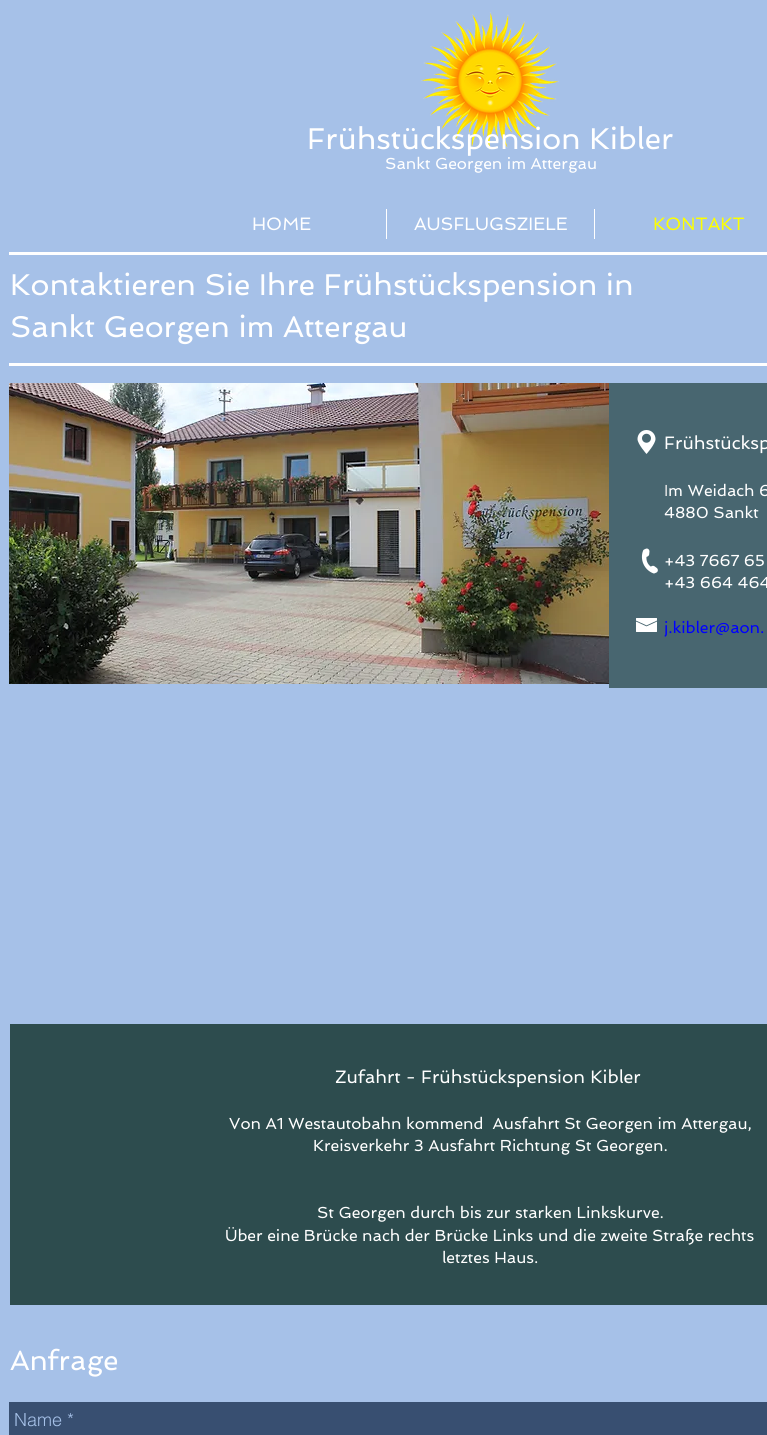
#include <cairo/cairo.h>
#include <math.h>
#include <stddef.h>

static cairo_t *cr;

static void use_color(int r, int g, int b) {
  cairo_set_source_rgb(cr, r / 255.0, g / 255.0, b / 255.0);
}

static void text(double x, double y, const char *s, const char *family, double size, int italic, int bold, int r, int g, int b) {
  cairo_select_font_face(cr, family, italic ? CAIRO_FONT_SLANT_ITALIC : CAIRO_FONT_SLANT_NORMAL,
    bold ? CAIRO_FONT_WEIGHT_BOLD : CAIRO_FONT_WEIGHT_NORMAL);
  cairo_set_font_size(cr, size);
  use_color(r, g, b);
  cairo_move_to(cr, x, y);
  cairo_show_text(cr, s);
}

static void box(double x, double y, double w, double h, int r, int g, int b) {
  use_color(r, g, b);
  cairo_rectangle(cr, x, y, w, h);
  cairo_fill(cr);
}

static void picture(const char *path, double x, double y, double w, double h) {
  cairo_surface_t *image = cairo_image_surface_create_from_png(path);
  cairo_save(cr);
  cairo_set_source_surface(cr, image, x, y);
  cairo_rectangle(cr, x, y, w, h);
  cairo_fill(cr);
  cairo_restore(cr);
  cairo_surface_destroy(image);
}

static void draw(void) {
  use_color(166, 193, 232);
  cairo_paint(cr);
  picture("img_01.png", 421, 12, 138, 138);
  box(386, 209, 1, 30, 255, 255, 255);
  box(594, 209, 1, 30, 255, 255, 255);
  box(9, 252, 758, 3, 255, 255, 255);
  box(9, 363, 758, 3, 255, 255, 255);
  picture("img_02.png", 9, 383, 600, 301);
  box(609, 383, 158, 305, 72, 102, 112);
  picture("img_03.png", 637, 430, 19, 24);
  picture("img_04.png", 641, 548, 17, 26);
  picture("img_05.png", 636, 618, 21, 14);
  box(10, 1024, 757, 281, 45, 76, 78);
  box(9, 1402, 758, 33, 56, 79, 113);
  text(307, 149, "Frühstückspension Kibler", "Spinnaker", 30, 0, 0, 255, 255, 255);
  text(385, 169, "Sankt Georgen im Attergau", "Spinnaker", 16, 0, 0, 255, 255, 255);
  text(252, 230, "HOME", "Spinnaker", 18, 0, 0, 255, 255, 255);
  text(414, 230, "AUSFLUGSZIELE", "Spinnaker", 18, 0, 0, 255, 255, 255);
  text(653, 230, "KONTAKT", "Spinnaker", 18, 0, 0, 253, 255, 0);
  text(10, 295, "Kontaktieren Sie Ihre Frühstückspension in", "Spinnaker", 30, 0, 0, 255, 255, 255);
  text(10, 337, "Sankt Georgen im Attergau", "Spinnaker", 30, 0, 0, 255, 255, 255);
  text(664, 449, "Frühstücksp", "Spinnaker", 18, 0, 0, 255, 255, 255);
  text(664, 496, "I", "Spinnaker", 16, 0, 0, 228, 228, 228);
  text(668, 496, "m Weidach 6", "Spinnaker", 16, 0, 0, 255, 255, 255);
  text(664, 518, "4880 Sankt", "Spinnaker", 16, 0, 0, 255, 255, 255);
  text(664, 566, "+43 7667 65", "Spinnaker", 16, 0, 0, 255, 255, 255);
  text(664, 588, "+43 664 464", "Spinnaker", 16, 0, 0, 255, 255, 255);
  text(664, 633, "j.kibler@aon.", "Spinnaker", 16, 0, 0, 0, 0, 255);
  text(335, 1083, "Zufahrt - Frühstückspension Kibler", "Spinnaker", 18, 0, 0, 255, 255, 255);
  text(229, 1129, "Von A1 Westautobahn kommend  Ausfahrt St Georgen im Attergau,", "Spinnaker", 16, 0, 0, 255, 255, 255);
  text(313, 1151, "Kreisverkehr 3 Ausfahrt Richtung St Georgen.", "Spinnaker", 16, 0, 0, 255, 255, 255);
  text(317, 1218, "St Georgen durch bis zur starken Linkskurve.", "Spinnaker", 16, 0, 0, 255, 255, 255);
  text(225, 1241, "Über eine Brücke nach der Brücke Links und die zweite Straße rechts", "Spinnaker", 16, 0, 0, 255, 255, 255);
  text(442, 1263, "letztes Haus.", "Spinnaker", 16, 0, 0, 255, 255, 255);
  text(10, 1370, "Anfrage", "Spinnaker", 28, 0, 0, 255, 255, 255);
  text(14, 1426, "Name *", "helvetica Light", 18, 0, 0, 166, 193, 232);
}

int main(void) {
  cairo_surface_t *surface = cairo_image_surface_create(CAIRO_FORMAT_RGB24, 767, 1435);
  cr = cairo_create(surface);
  cairo_font_options_t *options = cairo_font_options_create();
  cairo_font_options_set_hint_metrics(options, CAIRO_HINT_METRICS_OFF);
  cairo_font_options_set_hint_style(options, CAIRO_HINT_STYLE_NONE);
  cairo_set_font_options(cr, options);
  cairo_set_miter_limit(cr, 4);
  draw();
  cairo_surface_write_to_png(surface, "out.png");
  cairo_font_options_destroy(options);
  cairo_destroy(cr);
  cairo_surface_destroy(surface);
  return 0;
}
